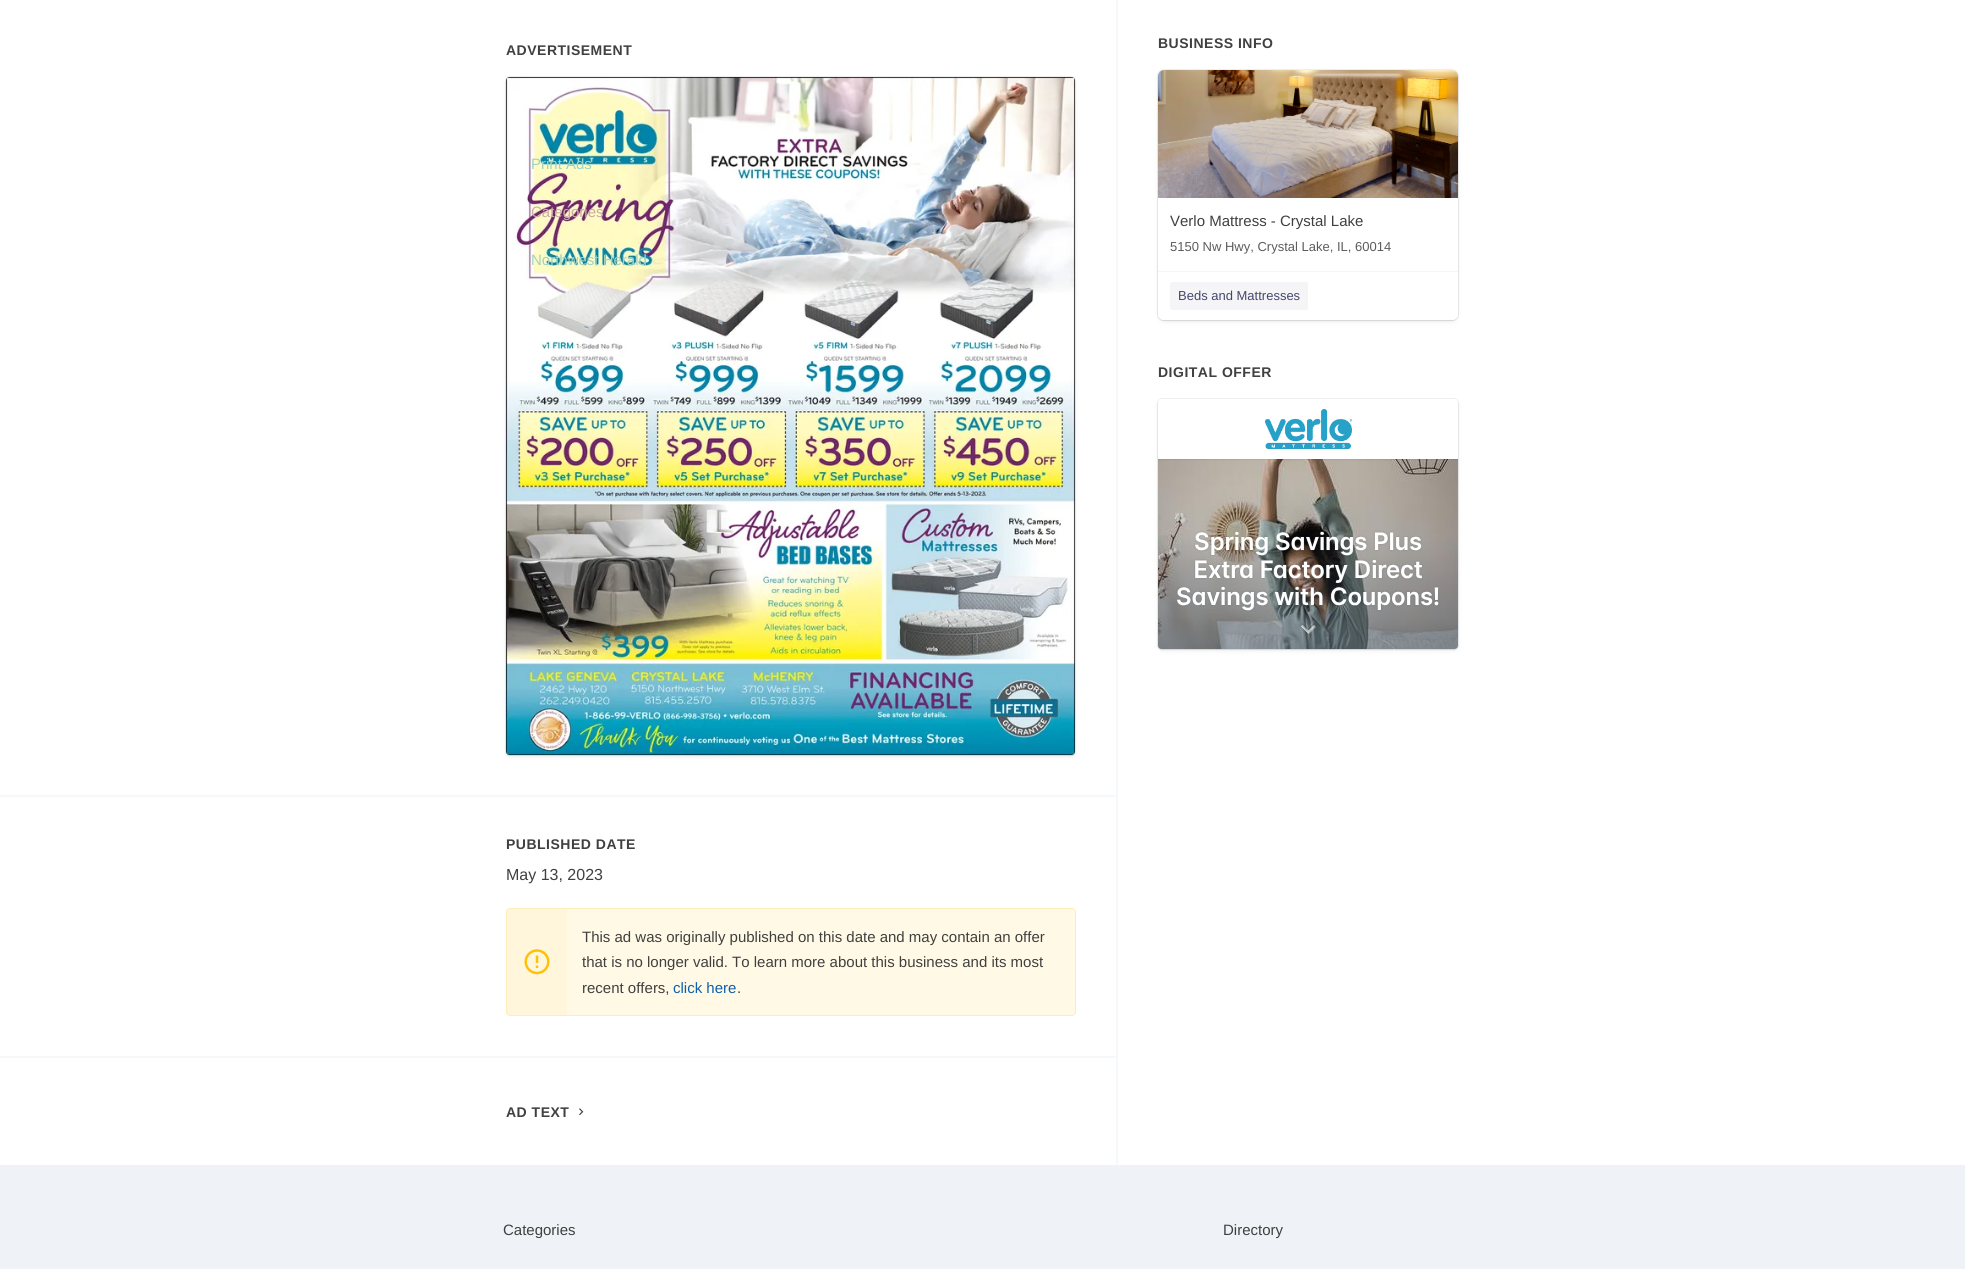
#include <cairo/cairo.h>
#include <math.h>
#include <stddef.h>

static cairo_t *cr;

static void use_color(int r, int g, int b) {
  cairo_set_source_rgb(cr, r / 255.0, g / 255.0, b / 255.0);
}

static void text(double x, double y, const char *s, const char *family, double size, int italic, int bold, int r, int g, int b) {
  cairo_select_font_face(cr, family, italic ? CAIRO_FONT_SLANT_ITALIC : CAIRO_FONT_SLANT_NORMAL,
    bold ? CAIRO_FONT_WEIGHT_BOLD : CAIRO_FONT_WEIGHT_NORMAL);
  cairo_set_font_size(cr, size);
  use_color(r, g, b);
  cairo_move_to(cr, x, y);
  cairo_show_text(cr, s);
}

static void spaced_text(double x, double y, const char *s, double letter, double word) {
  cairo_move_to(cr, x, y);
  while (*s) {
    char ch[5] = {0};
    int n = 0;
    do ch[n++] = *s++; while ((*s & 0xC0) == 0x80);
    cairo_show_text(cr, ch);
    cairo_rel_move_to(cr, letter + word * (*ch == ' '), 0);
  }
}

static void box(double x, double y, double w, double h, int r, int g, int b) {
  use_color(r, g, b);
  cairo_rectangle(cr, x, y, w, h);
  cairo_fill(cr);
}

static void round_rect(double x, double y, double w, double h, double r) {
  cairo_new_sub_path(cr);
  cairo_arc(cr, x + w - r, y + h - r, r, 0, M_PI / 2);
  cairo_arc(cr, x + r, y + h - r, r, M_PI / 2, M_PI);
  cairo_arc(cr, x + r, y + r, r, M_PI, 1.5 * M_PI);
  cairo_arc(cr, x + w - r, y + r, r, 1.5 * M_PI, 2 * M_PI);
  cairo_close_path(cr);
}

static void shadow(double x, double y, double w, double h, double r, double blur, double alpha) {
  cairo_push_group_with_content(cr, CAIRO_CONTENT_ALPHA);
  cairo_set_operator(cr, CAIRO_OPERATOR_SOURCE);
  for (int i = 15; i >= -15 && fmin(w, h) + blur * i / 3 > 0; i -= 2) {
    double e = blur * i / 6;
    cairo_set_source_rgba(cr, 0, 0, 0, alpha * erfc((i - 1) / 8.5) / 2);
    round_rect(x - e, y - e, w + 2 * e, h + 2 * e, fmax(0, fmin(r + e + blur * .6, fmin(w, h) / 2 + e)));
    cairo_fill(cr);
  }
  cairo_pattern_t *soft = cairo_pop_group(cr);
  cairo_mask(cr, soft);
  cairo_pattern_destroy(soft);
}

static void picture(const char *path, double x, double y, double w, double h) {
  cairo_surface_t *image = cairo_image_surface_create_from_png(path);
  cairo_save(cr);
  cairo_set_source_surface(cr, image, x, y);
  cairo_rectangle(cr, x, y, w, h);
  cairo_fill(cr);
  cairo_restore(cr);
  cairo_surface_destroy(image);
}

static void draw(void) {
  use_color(255, 255, 255);
  cairo_paint(cr);
  box(1116, 0, 2, 1165, 246, 249, 252);
  box(0, 795, 1116, 2, 246, 249, 252);
  use_color(60, 66, 87);
  shadow(506, 79, 569, 678, 4, 2.5, 0.08);
  round_rect(505.5, 76.5, 570, 679, 4.5);
  cairo_set_source_rgba(cr, 0.235, 0.259, 0.341, 0.08);
  cairo_set_line_width(cr, 1);
  cairo_stroke(cr);
  use_color(0, 0, 0);
  shadow(506, 78, 569, 678, 4, 0.5, 0.08);
  picture("img_01.png", 506, 77, 569, 678);
  box(0, 1056, 1116, 2, 246, 249, 252);
  use_color(255, 249, 230);
  round_rect(506, 908, 570, 108, 4);
  cairo_fill(cr);
  round_rect(506.5, 908.5, 569, 107, 3.5);
  cairo_set_source_rgba(cr, 1, 0.757, 0.027, 0.2);
  cairo_stroke(cr);
  picture("img_02.png", 524, 949, 26, 26);
  cairo_set_source_rgba(cr, 1, 0.757, 0.027, 0.05);
  cairo_rectangle(cr, 507, 909, 60, 106);
  cairo_fill(cr);
  picture("img_03.png", 579, 1108, 5, 8);
  use_color(60, 66, 87);
  shadow(1158, 72, 300, 250, 6, 2.5, 0.08);
  round_rect(1157.5, 69.5, 301, 251, 6.5);
  cairo_set_source_rgba(cr, 0.235, 0.259, 0.341, 0.08);
  cairo_stroke(cr);
  use_color(0, 0, 0);
  shadow(1158, 71, 300, 250, 6, 0.5, 0.08);
  use_color(255, 255, 255);
  round_rect(1158, 70, 300, 250, 6);
  cairo_fill(cr);
  picture("img_04.png", 1158, 70, 300, 128);
  cairo_new_path(cr);
  cairo_move_to(cr, 1158, 271);
  cairo_line_to(cr, 1458, 271);
  cairo_line_to(cr, 1458, 314);
  cairo_curve_to(cr, 1458, 317.5, 1455.5, 320, 1452, 320);
  cairo_line_to(cr, 1164, 320);
  cairo_curve_to(cr, 1160.5, 320, 1158, 317.5, 1158, 314);
  cairo_close_path(cr);
  cairo_fill(cr);
  box(1158, 271, 300, 1, 241, 247, 251);
  use_color(245, 245, 247);
  round_rect(1170, 282, 138, 28, 2);
  cairo_fill(cr);
  use_color(60, 66, 87);
  shadow(1158, 401, 300, 250, 4, 2.5, 0.08);
  round_rect(1157.5, 398.5, 301, 251, 4.5);
  cairo_set_source_rgba(cr, 0.235, 0.259, 0.341, 0.08);
  cairo_stroke(cr);
  use_color(0, 0, 0);
  shadow(1158, 400, 300, 250, 4, 0.5, 0.08);
  picture("img_05.png", 1158, 399, 300, 250);
  box(0, 1165, 1965, 104, 239, 242, 246);
  cairo_select_font_face(cr, "Liberation Sans", CAIRO_FONT_SLANT_NORMAL, CAIRO_FONT_WEIGHT_BOLD);
  cairo_set_font_size(cr, 14);
  use_color(64, 64, 64);
  spaced_text(506, 55, "ADVERTISEMENT", 0.5, 0);
  spaced_text(506, 849, "PUBLISHED DATE", 0.5, 0);
  text(506, 880, "May 13, 2023", "Liberation Sans", 16, 0, 0, 64, 64, 64);
  text(582, 942, "This ad was originally published on this date and may contain an offer", "Liberation Sans", 15, 0, 0, 64, 64, 64);
  text(582, 967, "that is no longer valid. To learn more about this business and its most", "Liberation Sans", 15, 0, 0, 64, 64, 64);
  text(582, 993, "recent offers,", "Liberation Sans", 15, 0, 0, 64, 64, 64);
  text(673, 993, "click here", "Liberation Sans", 15, 0, 0, 13, 96, 171);
  text(737, 993, ".", "Liberation Sans", 15, 0, 0, 64, 64, 64);
  cairo_select_font_face(cr, "Liberation Sans", CAIRO_FONT_SLANT_NORMAL, CAIRO_FONT_WEIGHT_BOLD);
  cairo_set_font_size(cr, 14);
  spaced_text(506, 1117, "AD TEXT", 0.5, 0);
  spaced_text(1158, 48, "BUSINESS INFO", 0.5, 0);
  text(1170, 226, "Verlo Mattress - Crystal Lake", "Liberation Sans", 15, 0, 0, 64, 64, 64);
  text(1170, 251, "5150 Nw Hwy, Crystal Lake, IL, 60014", "Liberation Sans", 13, 0, 0, 92, 92, 92);
  text(1178, 300, "Beds and Mattresses", "Liberation Sans", 13, 0, 0, 70, 70, 108);
  cairo_select_font_face(cr, "Liberation Sans", CAIRO_FONT_SLANT_NORMAL, CAIRO_FONT_WEIGHT_BOLD);
  cairo_set_font_size(cr, 14);
  use_color(64, 64, 64);
  spaced_text(1158, 377, "DIGITAL OFFER", 0.5, 0);
  text(531, 169, "Print Ads", "Liberation Sans", 15, 0, 0, 163, 208, 191);
  text(531, 217, "Categories", "Liberation Sans", 15, 0, 0, 201, 172, 165);
  text(531, 265, "Northwest Herald", "Liberation Sans", 15, 0, 0, 163, 208, 191);
  text(503, 1235, "Categories", "Liberation Sans", 15, 0, 0, 64, 64, 64);
  text(1223, 1235, "Directory", "Liberation Sans", 15, 0, 0, 64, 64, 64);
}

int main(void) {
  cairo_surface_t *surface = cairo_image_surface_create(CAIRO_FORMAT_RGB24, 1965, 1269);
  cr = cairo_create(surface);
  cairo_font_options_t *options = cairo_font_options_create();
  cairo_font_options_set_hint_metrics(options, CAIRO_HINT_METRICS_OFF);
  cairo_font_options_set_hint_style(options, CAIRO_HINT_STYLE_NONE);
  cairo_set_font_options(cr, options);
  cairo_set_miter_limit(cr, 4);
  draw();
  cairo_surface_write_to_png(surface, "out.png");
  cairo_font_options_destroy(options);
  cairo_destroy(cr);
  cairo_surface_destroy(surface);
  return 0;
}
